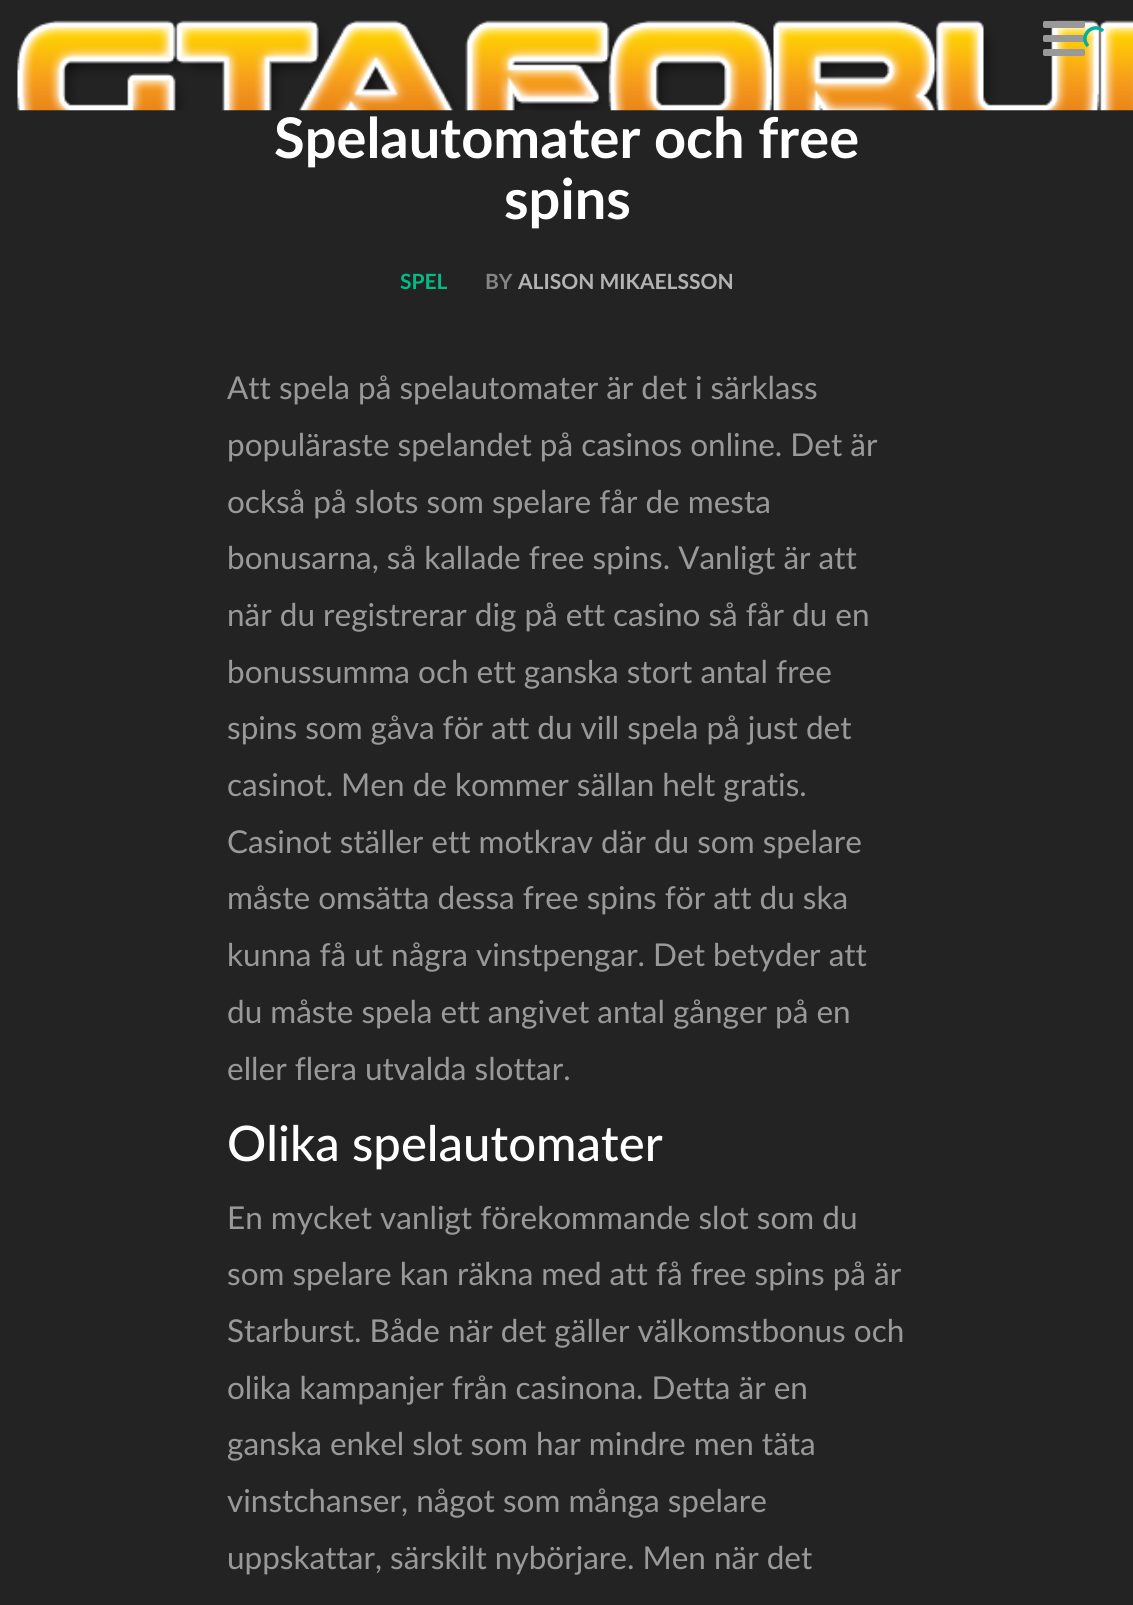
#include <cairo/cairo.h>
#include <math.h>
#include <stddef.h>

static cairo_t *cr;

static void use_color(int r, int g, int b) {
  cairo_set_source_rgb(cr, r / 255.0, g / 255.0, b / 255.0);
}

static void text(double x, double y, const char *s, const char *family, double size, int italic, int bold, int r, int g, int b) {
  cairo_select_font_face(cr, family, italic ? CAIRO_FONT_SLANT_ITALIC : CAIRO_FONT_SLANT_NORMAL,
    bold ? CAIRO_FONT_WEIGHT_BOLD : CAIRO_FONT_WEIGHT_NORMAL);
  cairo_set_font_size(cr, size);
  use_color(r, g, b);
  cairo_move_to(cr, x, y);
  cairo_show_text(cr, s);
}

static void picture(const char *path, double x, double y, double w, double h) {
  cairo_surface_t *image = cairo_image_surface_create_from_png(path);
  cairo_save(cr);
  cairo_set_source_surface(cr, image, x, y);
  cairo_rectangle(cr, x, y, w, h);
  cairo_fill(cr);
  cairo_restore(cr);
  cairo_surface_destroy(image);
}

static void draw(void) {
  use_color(35, 35, 35);
  cairo_paint(cr);
  picture("img_01.png", 17, 20, 1116, 91);
  picture("img_02.png", 1043, 21, 42, 35);
  cairo_new_path(cr);
  cairo_move_to(cr, 1088, 46);
  cairo_curve_to(cr, 1078.5, 36, 1093, 21.5, 1103, 31);
  use_color(0, 176, 154);
  cairo_set_line_width(cr, 3.5);
  cairo_stroke(cr);
  text(274, 158, "Spelautomater och free", "Lato", 56, 0, 1, 255, 255, 255);
  text(504, 219, "spins", "Lato", 56, 0, 1, 255, 255, 255);
  text(400, 289, "SPEL", "Lato", 21, 0, 1, 0, 189, 133);
  text(485, 289, "BY", "Lato", 21, 0, 1, 133, 133, 133);
  text(518, 289, "ALISON MIKAELSSON", "Lato", 21, 0, 1, 179, 179, 179);
  text(227, 399, "Att spela på spelautomater är det i särklass", "Lato", 31.5, 0, 0, 153, 153, 153);
  text(227, 456, "populäraste spelandet på casinos online. Det är", "Lato", 31.5, 0, 0, 153, 153, 153);
  text(227, 513, "också på slots som spelare får de mesta", "Lato", 31.5, 0, 0, 153, 153, 153);
  text(227, 569, "bonusarna, så kallade free spins. Vanligt är att", "Lato", 31.5, 0, 0, 153, 153, 153);
  text(227, 626, "när du registrerar dig på ett casino så får du en", "Lato", 31.5, 0, 0, 153, 153, 153);
  text(227, 683, "bonussumma och ett ganska stort antal free", "Lato", 31.5, 0, 0, 153, 153, 153);
  text(227, 739, "spins som gåva för att du vill spela på just det", "Lato", 31.5, 0, 0, 153, 153, 153);
  text(227, 796, "casinot. Men de kommer sällan helt gratis.", "Lato", 31.5, 0, 0, 153, 153, 153);
  text(227, 853, "Casinot ställer ett motkrav där du som spelare", "Lato", 31.5, 0, 0, 153, 153, 153);
  text(227, 909, "måste omsätta dessa free spins för att du ska", "Lato", 31.5, 0, 0, 153, 153, 153);
  text(227, 966, "kunna få ut några vinstpengar. Det betyder att", "Lato", 31.5, 0, 0, 153, 153, 153);
  text(227, 1023, "du måste spela ett angivet antal gånger på en", "Lato", 31.5, 0, 0, 153, 153, 153);
  text(227, 1080, "eller flera utvalda slottar.", "Lato", 31.5, 0, 0, 153, 153, 153);
  text(227, 1161, "Olika spelautomater", "Lato Medium", 49, 0, 0, 255, 255, 255);
  text(227, 1229, "En mycket vanligt förekommande slot som du", "Lato", 31.5, 0, 0, 153, 153, 153);
  text(227, 1285, "som spelare kan räkna med att få free spins på är", "Lato", 31.5, 0, 0, 153, 153, 153);
  text(227, 1342, "Starburst. Både när det gäller välkomstbonus och", "Lato", 31.5, 0, 0, 153, 153, 153);
  text(227, 1399, "olika kampanjer från casinona. Detta är en", "Lato", 31.5, 0, 0, 153, 153, 153);
  text(227, 1455, "ganska enkel slot som har mindre men täta", "Lato", 31.5, 0, 0, 153, 153, 153);
  text(227, 1512, "vinstchanser, något som många spelare", "Lato", 31.5, 0, 0, 153, 153, 153);
  text(227, 1569, "uppskattar, särskilt nybörjare. Men när det", "Lato", 31.5, 0, 0, 153, 153, 153);
}

int main(void) {
  cairo_surface_t *surface = cairo_image_surface_create(CAIRO_FORMAT_RGB24, 1133, 1605);
  cr = cairo_create(surface);
  cairo_font_options_t *options = cairo_font_options_create();
  cairo_font_options_set_hint_metrics(options, CAIRO_HINT_METRICS_OFF);
  cairo_font_options_set_hint_style(options, CAIRO_HINT_STYLE_NONE);
  cairo_set_font_options(cr, options);
  cairo_set_miter_limit(cr, 4);
  draw();
  cairo_surface_write_to_png(surface, "out.png");
  cairo_font_options_destroy(options);
  cairo_destroy(cr);
  cairo_surface_destroy(surface);
  return 0;
}
